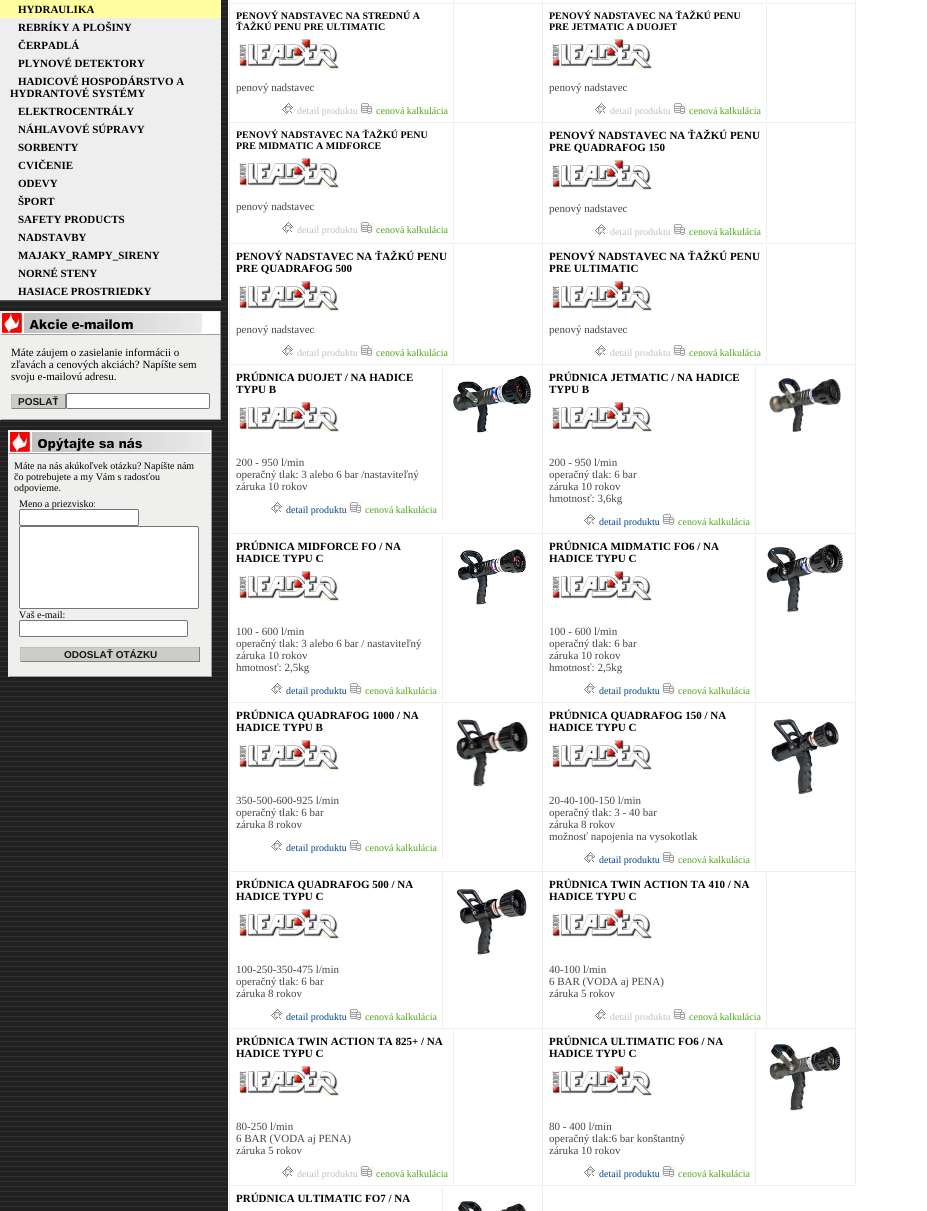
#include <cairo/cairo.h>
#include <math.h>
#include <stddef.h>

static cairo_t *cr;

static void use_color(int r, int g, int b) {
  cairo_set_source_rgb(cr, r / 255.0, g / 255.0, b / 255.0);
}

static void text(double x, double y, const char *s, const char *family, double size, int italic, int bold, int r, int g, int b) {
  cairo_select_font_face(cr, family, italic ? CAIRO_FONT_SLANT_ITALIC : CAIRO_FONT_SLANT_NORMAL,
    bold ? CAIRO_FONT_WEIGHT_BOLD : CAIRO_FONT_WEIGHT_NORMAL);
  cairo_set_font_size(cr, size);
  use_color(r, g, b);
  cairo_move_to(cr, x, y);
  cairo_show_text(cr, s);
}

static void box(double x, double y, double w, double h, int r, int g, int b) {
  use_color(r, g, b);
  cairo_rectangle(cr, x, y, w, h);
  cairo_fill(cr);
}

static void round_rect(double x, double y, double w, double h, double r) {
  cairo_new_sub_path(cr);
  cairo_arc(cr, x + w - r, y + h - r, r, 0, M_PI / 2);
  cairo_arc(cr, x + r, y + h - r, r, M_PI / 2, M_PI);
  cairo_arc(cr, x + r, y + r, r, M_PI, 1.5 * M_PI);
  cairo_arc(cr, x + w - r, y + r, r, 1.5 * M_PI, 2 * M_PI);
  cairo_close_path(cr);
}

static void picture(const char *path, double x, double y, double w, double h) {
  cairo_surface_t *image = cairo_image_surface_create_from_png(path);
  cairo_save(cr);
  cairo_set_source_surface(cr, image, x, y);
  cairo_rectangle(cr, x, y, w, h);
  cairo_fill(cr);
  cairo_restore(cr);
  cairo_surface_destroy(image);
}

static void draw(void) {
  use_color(255, 255, 255);
  cairo_paint(cr);
  picture("img_01.png", 0, 0, 228, 1211);
  box(0, 300, 221, 1, 85, 85, 85);
  box(0, 0, 221, 18, 255, 255, 159);
  box(0, 18, 221, 282, 238, 238, 238);
  box(1, 312, 219, 22, 255, 255, 255);
  box(0, 311, 221, 1, 238, 238, 238);
  box(220, 311, 1, 24, 159, 159, 159);
  box(0, 334, 221, 1, 159, 159, 159);
  box(0, 311, 1, 24, 238, 238, 238);
  picture("img_02.png", 2, 313, 200, 20);
  box(1, 336, 219, 83, 239, 240, 238);
  box(0, 335, 221, 1, 238, 238, 238);
  box(220, 335, 1, 85, 159, 159, 159);
  box(0, 419, 221, 1, 159, 159, 159);
  box(0, 335, 1, 85, 238, 238, 238);
  box(12, 395, 53, 13, 203, 206, 200);
  box(11, 394, 55, 1, 192, 192, 192);
  box(65, 394, 1, 15, 128, 128, 128);
  box(11, 408, 55, 1, 128, 128, 128);
  box(11, 394, 1, 15, 192, 192, 192);
  use_color(255, 255, 255);
  round_rect(66.5, 393.5, 143, 15, 1.5);
  cairo_fill_preserve(cr);
  use_color(118, 118, 118);
  cairo_set_line_width(cr, 1);
  cairo_stroke(cr);
  box(9, 431, 202, 22, 255, 255, 255);
  box(8, 430, 204, 1, 238, 238, 238);
  box(211, 430, 1, 24, 159, 159, 159);
  box(8, 453, 204, 1, 159, 159, 159);
  box(8, 430, 1, 24, 238, 238, 238);
  picture("img_03.png", 10, 432, 200, 20);
  box(9, 455, 202, 221, 239, 240, 238);
  box(8, 454, 204, 1, 238, 238, 238);
  box(211, 454, 1, 223, 159, 159, 159);
  box(8, 676, 204, 1, 159, 159, 159);
  box(8, 454, 1, 223, 238, 238, 238);
  use_color(255, 255, 255);
  round_rect(19.5, 526.5, 179, 82, 1.5);
  cairo_fill_preserve(cr);
  use_color(118, 118, 118);
  cairo_stroke(cr);
  use_color(255, 255, 255);
  round_rect(19.5, 620.5, 168, 16, 1.5);
  cairo_fill_preserve(cr);
  use_color(118, 118, 118);
  cairo_stroke(cr);
  box(21, 648, 178, 13, 203, 206, 200);
  box(20, 647, 180, 1, 192, 192, 192);
  box(199, 647, 1, 15, 128, 128, 128);
  box(20, 661, 180, 1, 128, 128, 128);
  box(20, 647, 1, 15, 192, 192, 192);
  box(542, 0, 1, 1211, 238, 238, 238);
  box(229, 3, 314, 1, 238, 238, 238);
  box(229, 0, 1, 4, 238, 238, 238);
  box(453, 0, 1, 2, 238, 238, 238);
  box(855, 0, 1, 1186, 238, 238, 238);
  box(543, 3, 313, 1, 238, 238, 238);
  box(766, 0, 1, 2, 238, 238, 238);
  box(229, 122, 627, 1, 238, 238, 238);
  box(229, 4, 1, 119, 238, 238, 238);
  picture("img_04.png", 236, 39, 103, 30);
  box(453, 5, 1, 116, 238, 238, 238);
  picture("img_05.png", 282, 103, 11, 11);
  picture("img_06.png", 360, 103, 13, 11);
  picture("img_04.png", 549, 39, 103, 30);
  box(766, 5, 1, 116, 238, 238, 238);
  picture("img_05.png", 595, 103, 11, 11);
  picture("img_06.png", 673, 103, 13, 11);
  box(229, 243, 627, 1, 238, 238, 238);
  box(229, 123, 1, 121, 238, 238, 238);
  picture("img_04.png", 236, 158, 103, 30);
  box(453, 124, 1, 116, 238, 238, 238);
  picture("img_05.png", 282, 222, 11, 11);
  picture("img_06.png", 360, 222, 13, 11);
  picture("img_04.png", 549, 160, 103, 30);
  box(766, 124, 1, 118, 238, 238, 238);
  picture("img_05.png", 595, 224, 11, 11);
  picture("img_06.png", 673, 224, 13, 11);
  box(229, 364, 627, 1, 238, 238, 238);
  box(229, 244, 1, 121, 238, 238, 238);
  picture("img_04.png", 236, 281, 103, 30);
  box(453, 245, 1, 118, 238, 238, 238);
  picture("img_05.png", 282, 345, 11, 11);
  picture("img_06.png", 360, 345, 13, 11);
  picture("img_04.png", 549, 281, 103, 30);
  box(766, 245, 1, 118, 238, 238, 238);
  picture("img_05.png", 595, 345, 11, 11);
  picture("img_06.png", 673, 345, 13, 11);
  box(229, 533, 627, 1, 238, 238, 238);
  box(229, 365, 1, 169, 238, 238, 238);
  picture("img_04.png", 236, 402, 103, 30);
  box(442, 366, 1, 154, 238, 238, 238);
  picture("img_07.png", 453, 375, 79, 58);
  picture("img_05.png", 271, 502, 11, 11);
  picture("img_06.png", 349, 502, 13, 11);
  picture("img_04.png", 549, 402, 103, 30);
  box(755, 366, 1, 166, 238, 238, 238);
  picture("img_08.png", 769, 378, 72, 54);
  picture("img_05.png", 584, 514, 11, 11);
  picture("img_06.png", 662, 514, 13, 11);
  box(229, 702, 627, 1, 238, 238, 238);
  box(229, 534, 1, 169, 238, 238, 238);
  picture("img_04.png", 236, 571, 103, 30);
  box(442, 535, 1, 166, 238, 238, 238);
  picture("img_09.png", 458, 549, 68, 56);
  picture("img_05.png", 271, 683, 11, 11);
  picture("img_06.png", 349, 683, 13, 11);
  picture("img_04.png", 549, 571, 103, 30);
  box(755, 535, 1, 166, 238, 238, 238);
  picture("img_10.png", 766, 544, 78, 69);
  picture("img_05.png", 584, 683, 11, 11);
  picture("img_06.png", 662, 683, 13, 11);
  box(229, 871, 627, 1, 238, 238, 238);
  box(229, 703, 1, 169, 238, 238, 238);
  picture("img_04.png", 236, 740, 103, 30);
  box(442, 704, 1, 154, 238, 238, 238);
  picture("img_11.png", 456, 719, 73, 68);
  picture("img_05.png", 271, 840, 11, 11);
  picture("img_06.png", 349, 840, 13, 11);
  picture("img_04.png", 549, 740, 103, 30);
  box(755, 704, 1, 166, 238, 238, 238);
  picture("img_12.png", 771, 718, 68, 77);
  picture("img_05.png", 584, 852, 11, 11);
  picture("img_06.png", 662, 852, 13, 11);
  box(229, 1028, 627, 1, 238, 238, 238);
  box(229, 872, 1, 157, 238, 238, 238);
  picture("img_04.png", 236, 909, 103, 30);
  box(442, 873, 1, 154, 238, 238, 238);
  picture("img_13.png", 456, 889, 71, 66);
  picture("img_05.png", 271, 1009, 11, 11);
  picture("img_06.png", 349, 1009, 13, 11);
  picture("img_04.png", 549, 909, 103, 30);
  box(766, 873, 1, 154, 238, 238, 238);
  picture("img_05.png", 595, 1009, 11, 11);
  picture("img_06.png", 673, 1009, 13, 11);
  box(229, 1185, 627, 1, 238, 238, 238);
  box(229, 1029, 1, 182, 238, 238, 238);
  picture("img_04.png", 236, 1066, 103, 30);
  box(453, 1030, 1, 154, 238, 238, 238);
  picture("img_05.png", 282, 1166, 11, 11);
  picture("img_06.png", 360, 1166, 13, 11);
  picture("img_04.png", 549, 1066, 103, 30);
  box(755, 1030, 1, 154, 238, 238, 238);
  picture("img_14.png", 769, 1044, 72, 67);
  picture("img_05.png", 584, 1166, 11, 11);
  picture("img_06.png", 662, 1166, 13, 11);
  box(442, 1187, 1, 24, 238, 238, 238);
  picture("img_15.png", 458, 1201, 69, 10);
  text(18, 13, "HYDRAULIKA", "Liberation Serif", 11, 0, 1, 0, 0, 0);
  text(18, 31, "REBRÍKY A PLOŠINY", "Liberation Serif", 11, 0, 1, 0, 0, 0);
  text(18, 49, "ČERPADLÁ", "Liberation Serif", 11, 0, 1, 0, 0, 0);
  text(18, 67, "PLYNOVÉ DETEKTORY", "Liberation Serif", 11, 0, 1, 0, 0, 0);
  text(18, 85, "HADICOVÉ HOSPODÁRSTVO A", "Liberation Serif", 11, 0, 1, 0, 0, 0);
  text(10, 97, "HYDRANTOVÉ SYSTÉMY", "Liberation Serif", 11, 0, 1, 0, 0, 0);
  text(18, 115, "ELEKTROCENTRÁLY", "Liberation Serif", 11, 0, 1, 0, 0, 0);
  text(18, 133, "NÁHLAVOVÉ SÚPRAVY", "Liberation Serif", 11, 0, 1, 0, 0, 0);
  text(18, 151, "SORBENTY", "Liberation Serif", 11, 0, 1, 0, 0, 0);
  text(18, 169, "CVIČENIE", "Liberation Serif", 11, 0, 1, 0, 0, 0);
  text(18, 187, "ODEVY", "Liberation Serif", 11, 0, 1, 0, 0, 0);
  text(18, 205, "ŠPORT", "Liberation Serif", 11, 0, 1, 0, 0, 0);
  text(18, 223, "SAFETY PRODUCTS", "Liberation Serif", 11, 0, 1, 0, 0, 0);
  text(18, 241, "NADSTAVBY", "Liberation Serif", 11, 0, 1, 0, 0, 0);
  text(18, 259, "MAJAKY_RAMPY_SIRENY", "Liberation Serif", 11, 0, 1, 0, 0, 0);
  text(18, 277, "NORNÉ STENY", "Liberation Serif", 11, 0, 1, 0, 0, 0);
  text(18, 295, "HASIACE PROSTRIEDKY", "Liberation Serif", 11, 0, 1, 0, 0, 0);
  text(11, 356, "Máte záujem o zasielanie informácii o", "Liberation Serif", 11, 0, 0, 0, 0, 0);
  text(11, 368, "zľavách a cenových akciách? Napíšte sem", "Liberation Serif", 11, 0, 0, 0, 0, 0);
  text(11, 380, "svoju e-mailovú adresu.", "Liberation Serif", 11, 0, 0, 0, 0, 0);
  text(18, 405, "POSLAŤ", "Liberation Sans", 10, 0, 1, 20, 22, 18);
  text(14, 469, "Máte na nás akúkoľvek otázku? Napíšte nám", "Liberation Serif", 10, 0, 0, 0, 0, 0);
  text(14, 480, "čo potrebujete a my Vám s radosťou", "Liberation Serif", 10, 0, 0, 0, 0, 0);
  text(14, 491, "odpovieme.", "Liberation Serif", 10, 0, 0, 0, 0, 0);
  text(19, 507, "Meno a priezvisko:", "Liberation Serif", 10, 0, 0, 0, 0, 0);
  use_color(255, 255, 255);
  round_rect(19.5, 509.5, 119, 16, 1.5);
  cairo_fill_preserve(cr);
  use_color(118, 118, 118);
  cairo_stroke(cr);
  text(19, 618, "Vaš e-mail:", "Liberation Serif", 10, 0, 0, 0, 0, 0);
  text(64, 658, "ODOSLAŤ OTÁZKU", "Liberation Sans", 10, 0, 1, 20, 22, 18);
  text(236, 19, "PENOVÝ NADSTAVEC NA STREDNÚ A", "Liberation Serif", 10, 0, 1, 0, 0, 0);
  text(236, 30, "ŤAŽKÚ PENU PRE ULTIMATIC", "Liberation Serif", 10, 0, 1, 0, 0, 0);
  text(236, 91, "penový nadstavec", "Liberation Serif", 11, 0, 0, 68, 68, 68);
  text(297, 114, "detail produktu", "Liberation Serif", 10, 0, 0, 192, 192, 192);
  text(376, 114, "cenová kalkulácia", "Liberation Serif", 10, 0, 0, 73, 166, 17);
  text(549, 19, "PENOVÝ NADSTAVEC NA ŤAŽKÚ PENU", "Liberation Serif", 10, 0, 1, 0, 0, 0);
  text(549, 30, "PRE JETMATIC A DUOJET", "Liberation Serif", 10, 0, 1, 0, 0, 0);
  text(549, 91, "penový nadstavec", "Liberation Serif", 11, 0, 0, 68, 68, 68);
  text(610, 114, "detail produktu", "Liberation Serif", 10, 0, 0, 192, 192, 192);
  text(689, 114, "cenová kalkulácia", "Liberation Serif", 10, 0, 0, 73, 166, 17);
  text(236, 138, "PENOVÝ NADSTAVEC NA ŤAŽKÚ PENU", "Liberation Serif", 10, 0, 1, 0, 0, 0);
  text(236, 149, "PRE MIDMATIC A MIDFORCE", "Liberation Serif", 10, 0, 1, 0, 0, 0);
  text(236, 210, "penový nadstavec", "Liberation Serif", 11, 0, 0, 68, 68, 68);
  text(297, 233, "detail produktu", "Liberation Serif", 10, 0, 0, 192, 192, 192);
  text(376, 233, "cenová kalkulácia", "Liberation Serif", 10, 0, 0, 73, 166, 17);
  text(549, 139, "PENOVÝ NADSTAVEC NA ŤAŽKÚ PENU", "Liberation Serif", 11, 0, 1, 0, 0, 0);
  text(549, 151, "PRE QUADRAFOG 150", "Liberation Serif", 11, 0, 1, 0, 0, 0);
  text(549, 212, "penový nadstavec", "Liberation Serif", 11, 0, 0, 68, 68, 68);
  text(610, 235, "detail produktu", "Liberation Serif", 10, 0, 0, 192, 192, 192);
  text(689, 235, "cenová kalkulácia", "Liberation Serif", 10, 0, 0, 73, 166, 17);
  text(236, 260, "PENOVÝ NADSTAVEC NA ŤAŽKÚ PENU", "Liberation Serif", 11, 0, 1, 0, 0, 0);
  text(236, 272, "PRE QUADRAFOG 500", "Liberation Serif", 11, 0, 1, 0, 0, 0);
  text(236, 333, "penový nadstavec", "Liberation Serif", 11, 0, 0, 68, 68, 68);
  text(297, 356, "detail produktu", "Liberation Serif", 10, 0, 0, 192, 192, 192);
  text(376, 356, "cenová kalkulácia", "Liberation Serif", 10, 0, 0, 73, 166, 17);
  text(549, 260, "PENOVÝ NADSTAVEC NA ŤAŽKÚ PENU", "Liberation Serif", 11, 0, 1, 0, 0, 0);
  text(549, 272, "PRE ULTIMATIC", "Liberation Serif", 11, 0, 1, 0, 0, 0);
  text(549, 333, "penový nadstavec", "Liberation Serif", 11, 0, 0, 68, 68, 68);
  text(610, 356, "detail produktu", "Liberation Serif", 10, 0, 0, 192, 192, 192);
  text(689, 356, "cenová kalkulácia", "Liberation Serif", 10, 0, 0, 73, 166, 17);
  text(236, 381, "PRÚDNICA DUOJET / NA HADICE", "Liberation Serif", 11, 0, 1, 0, 0, 0);
  text(236, 393, "TYPU B", "Liberation Serif", 11, 0, 1, 0, 0, 0);
  text(236, 466, "200 - 950 l/min", "Liberation Serif", 11, 0, 0, 68, 68, 68);
  text(236, 478, "operačný tlak: 3 alebo 6 bar /nastaviteľný", "Liberation Serif", 11, 0, 0, 68, 68, 68);
  text(236, 490, "záruka 10 rokov", "Liberation Serif", 11, 0, 0, 68, 68, 68);
  text(286, 513, "detail produktu", "Liberation Serif", 10, 0, 0, 0, 68, 136);
  text(365, 513, "cenová kalkulácia", "Liberation Serif", 10, 0, 0, 73, 166, 17);
  text(549, 381, "PRÚDNICA JETMATIC / NA HADICE", "Liberation Serif", 11, 0, 1, 0, 0, 0);
  text(549, 393, "TYPU B", "Liberation Serif", 11, 0, 1, 0, 0, 0);
  text(549, 466, "200 - 950 l/min", "Liberation Serif", 11, 0, 0, 68, 68, 68);
  text(549, 478, "operačný tlak: 6 bar", "Liberation Serif", 11, 0, 0, 68, 68, 68);
  text(549, 490, "záruka 10 rokov", "Liberation Serif", 11, 0, 0, 68, 68, 68);
  text(549, 502, "hmotnosť: 3,6kg", "Liberation Serif", 11, 0, 0, 68, 68, 68);
  text(599, 525, "detail produktu", "Liberation Serif", 10, 0, 0, 0, 68, 136);
  text(678, 525, "cenová kalkulácia", "Liberation Serif", 10, 0, 0, 73, 166, 17);
  text(236, 550, "PRÚDNICA MIDFORCE FO / NA", "Liberation Serif", 11, 0, 1, 0, 0, 0);
  text(236, 562, "HADICE TYPU C", "Liberation Serif", 11, 0, 1, 0, 0, 0);
  text(236, 635, "100 - 600 l/min", "Liberation Serif", 11, 0, 0, 68, 68, 68);
  text(236, 647, "operačný tlak: 3 alebo 6 bar / nastaviteľný", "Liberation Serif", 11, 0, 0, 68, 68, 68);
  text(236, 659, "záruka 10 rokov", "Liberation Serif", 11, 0, 0, 68, 68, 68);
  text(236, 671, "hmotnosť: 2,5kg", "Liberation Serif", 11, 0, 0, 68, 68, 68);
  text(286, 694, "detail produktu", "Liberation Serif", 10, 0, 0, 0, 68, 136);
  text(365, 694, "cenová kalkulácia", "Liberation Serif", 10, 0, 0, 73, 166, 17);
  text(549, 550, "PRÚDNICA MIDMATIC FO6 / NA", "Liberation Serif", 11, 0, 1, 0, 0, 0);
  text(549, 562, "HADICE TYPU C", "Liberation Serif", 11, 0, 1, 0, 0, 0);
  text(549, 635, "100 - 600 l/min", "Liberation Serif", 11, 0, 0, 68, 68, 68);
  text(549, 647, "operačný tlak: 6 bar", "Liberation Serif", 11, 0, 0, 68, 68, 68);
  text(549, 659, "záruka 10 rokov", "Liberation Serif", 11, 0, 0, 68, 68, 68);
  text(549, 671, "hmotnosť: 2,5kg", "Liberation Serif", 11, 0, 0, 68, 68, 68);
  text(599, 694, "detail produktu", "Liberation Serif", 10, 0, 0, 0, 68, 136);
  text(678, 694, "cenová kalkulácia", "Liberation Serif", 10, 0, 0, 73, 166, 17);
  text(236, 719, "PRÚDNICA QUADRAFOG 1000 / NA", "Liberation Serif", 11, 0, 1, 0, 0, 0);
  text(236, 731, "HADICE TYPU B", "Liberation Serif", 11, 0, 1, 0, 0, 0);
  text(236, 804, "350-500-600-925 l/min", "Liberation Serif", 11, 0, 0, 68, 68, 68);
  text(236, 816, "operačný tlak: 6 bar", "Liberation Serif", 11, 0, 0, 68, 68, 68);
  text(236, 828, "záruka 8 rokov", "Liberation Serif", 11, 0, 0, 68, 68, 68);
  text(286, 851, "detail produktu", "Liberation Serif", 10, 0, 0, 0, 68, 136);
  text(365, 851, "cenová kalkulácia", "Liberation Serif", 10, 0, 0, 73, 166, 17);
  text(549, 719, "PRÚDNICA QUADRAFOG 150 / NA", "Liberation Serif", 11, 0, 1, 0, 0, 0);
  text(549, 731, "HADICE TYPU C", "Liberation Serif", 11, 0, 1, 0, 0, 0);
  text(549, 804, "20-40-100-150 l/min", "Liberation Serif", 11, 0, 0, 68, 68, 68);
  text(549, 816, "operačný tlak: 3 - 40 bar", "Liberation Serif", 11, 0, 0, 68, 68, 68);
  text(549, 828, "záruka 8 rokov", "Liberation Serif", 11, 0, 0, 68, 68, 68);
  text(549, 840, "možnosť napojenia na vysokotlak", "Liberation Serif", 11, 0, 0, 68, 68, 68);
  text(599, 863, "detail produktu", "Liberation Serif", 10, 0, 0, 0, 68, 136);
  text(678, 863, "cenová kalkulácia", "Liberation Serif", 10, 0, 0, 73, 166, 17);
  text(236, 888, "PRÚDNICA QUADRAFOG 500 / NA", "Liberation Serif", 11, 0, 1, 0, 0, 0);
  text(236, 900, "HADICE TYPU C", "Liberation Serif", 11, 0, 1, 0, 0, 0);
  text(236, 973, "100-250-350-475 l/min", "Liberation Serif", 11, 0, 0, 68, 68, 68);
  text(236, 985, "operačný tlak: 6 bar", "Liberation Serif", 11, 0, 0, 68, 68, 68);
  text(236, 997, "záruka 8 rokov", "Liberation Serif", 11, 0, 0, 68, 68, 68);
  text(286, 1020, "detail produktu", "Liberation Serif", 10, 0, 0, 0, 68, 136);
  text(365, 1020, "cenová kalkulácia", "Liberation Serif", 10, 0, 0, 73, 166, 17);
  text(549, 888, "PRÚDNICA TWIN ACTION TA 410 / NA", "Liberation Serif", 11, 0, 1, 0, 0, 0);
  text(549, 900, "HADICE TYPU C", "Liberation Serif", 11, 0, 1, 0, 0, 0);
  text(549, 973, "40-100 l/min", "Liberation Serif", 11, 0, 0, 68, 68, 68);
  text(549, 985, "6 BAR (VODA aj PENA)", "Liberation Serif", 11, 0, 0, 68, 68, 68);
  text(549, 997, "záruka 5 rokov", "Liberation Serif", 11, 0, 0, 68, 68, 68);
  text(610, 1020, "detail produktu", "Liberation Serif", 10, 0, 0, 192, 192, 192);
  text(689, 1020, "cenová kalkulácia", "Liberation Serif", 10, 0, 0, 73, 166, 17);
  text(236, 1045, "PRÚDNICA TWIN ACTION TA 825+ / NA", "Liberation Serif", 11, 0, 1, 0, 0, 0);
  text(236, 1057, "HADICE TYPU C", "Liberation Serif", 11, 0, 1, 0, 0, 0);
  text(236, 1130, "80-250 l/min", "Liberation Serif", 11, 0, 0, 68, 68, 68);
  text(236, 1142, "6 BAR (VODA aj PENA)", "Liberation Serif", 11, 0, 0, 68, 68, 68);
  text(236, 1154, "záruka 5 rokov", "Liberation Serif", 11, 0, 0, 68, 68, 68);
  text(297, 1177, "detail produktu", "Liberation Serif", 10, 0, 0, 192, 192, 192);
  text(376, 1177, "cenová kalkulácia", "Liberation Serif", 10, 0, 0, 73, 166, 17);
  text(549, 1045, "PRÚDNICA ULTIMATIC FO6 / NA", "Liberation Serif", 11, 0, 1, 0, 0, 0);
  text(549, 1057, "HADICE TYPU C", "Liberation Serif", 11, 0, 1, 0, 0, 0);
  text(549, 1130, "80 - 400 l/min", "Liberation Serif", 11, 0, 0, 68, 68, 68);
  text(549, 1142, "operačný tlak:6 bar konštantný", "Liberation Serif", 11, 0, 0, 68, 68, 68);
  text(549, 1154, "záruka 10 rokov", "Liberation Serif", 11, 0, 0, 68, 68, 68);
  text(599, 1177, "detail produktu", "Liberation Serif", 10, 0, 0, 0, 68, 136);
  text(678, 1177, "cenová kalkulácia", "Liberation Serif", 10, 0, 0, 73, 166, 17);
  text(236, 1202, "PRÚDNICA ULTIMATIC FO7 / NA", "Liberation Serif", 11, 0, 1, 0, 0, 0);
}

int main(void) {
  cairo_surface_t *surface = cairo_image_surface_create(CAIRO_FORMAT_RGB24, 927, 1211);
  cr = cairo_create(surface);
  cairo_font_options_t *options = cairo_font_options_create();
  cairo_font_options_set_hint_metrics(options, CAIRO_HINT_METRICS_OFF);
  cairo_font_options_set_hint_style(options, CAIRO_HINT_STYLE_NONE);
  cairo_set_font_options(cr, options);
  cairo_set_miter_limit(cr, 4);
  draw();
  cairo_surface_write_to_png(surface, "out.png");
  cairo_font_options_destroy(options);
  cairo_destroy(cr);
  cairo_surface_destroy(surface);
  return 0;
}
